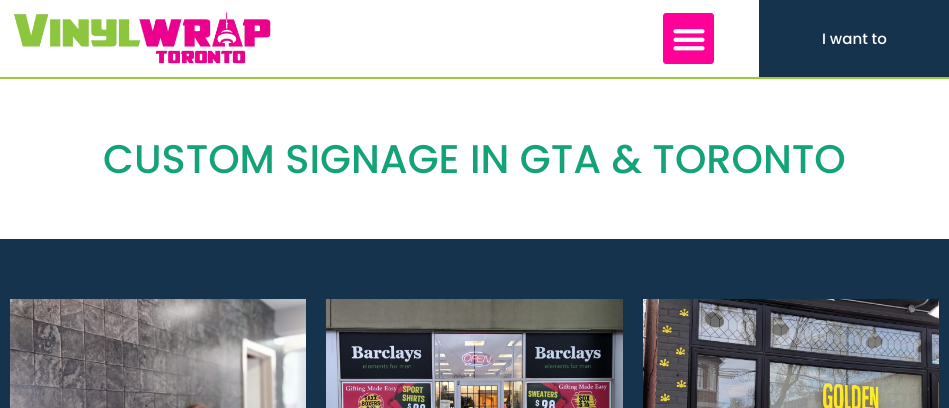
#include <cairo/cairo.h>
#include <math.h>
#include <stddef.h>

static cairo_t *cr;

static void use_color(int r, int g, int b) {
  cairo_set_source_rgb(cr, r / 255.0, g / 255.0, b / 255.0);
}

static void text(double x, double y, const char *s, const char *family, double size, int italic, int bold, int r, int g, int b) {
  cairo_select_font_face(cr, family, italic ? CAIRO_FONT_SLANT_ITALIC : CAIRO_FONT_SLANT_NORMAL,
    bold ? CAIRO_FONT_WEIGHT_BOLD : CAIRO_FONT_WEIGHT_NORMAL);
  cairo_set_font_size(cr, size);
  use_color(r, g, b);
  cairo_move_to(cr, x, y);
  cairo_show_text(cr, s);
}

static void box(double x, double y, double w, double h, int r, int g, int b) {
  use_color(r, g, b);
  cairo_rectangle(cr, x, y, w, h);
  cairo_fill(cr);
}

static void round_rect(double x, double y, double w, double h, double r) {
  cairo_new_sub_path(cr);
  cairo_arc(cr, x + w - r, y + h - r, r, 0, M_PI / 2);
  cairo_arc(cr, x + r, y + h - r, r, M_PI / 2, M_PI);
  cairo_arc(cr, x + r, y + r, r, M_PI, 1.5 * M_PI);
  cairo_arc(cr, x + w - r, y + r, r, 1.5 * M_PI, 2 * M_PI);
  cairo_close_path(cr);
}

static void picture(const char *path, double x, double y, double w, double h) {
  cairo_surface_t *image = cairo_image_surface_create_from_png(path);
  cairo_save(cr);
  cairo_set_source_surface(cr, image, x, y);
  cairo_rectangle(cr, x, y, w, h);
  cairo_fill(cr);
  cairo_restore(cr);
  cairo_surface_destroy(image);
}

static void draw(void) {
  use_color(255, 255, 255);
  cairo_paint(cr);
  box(0, 77, 949, 2, 153, 204, 51);
  picture("img_01.png", 14, 12, 257, 52);
  use_color(255, 0, 153);
  round_rect(663, 13, 51, 51, 3);
  cairo_fill(cr);
  picture("img_02.png", 673, 29, 32, 22);
  box(759, 0, 190, 77, 21, 51, 76);
  box(0, 239, 949, 169, 21, 51, 76);
  picture("img_03.png", 10, 299, 296, 109);
  picture("img_04.png", 326, 299, 297, 109);
  picture("img_05.png", 643, 299, 296, 109);
  text(822, 44, "I want to", "Poppins Medium", 15, 0, 0, 255, 255, 255);
  text(103, 173, "CUSTOM SIGNAGE IN GTA & TORONTO", "Poppins Medium", 40, 0, 0, 20, 162, 120);
}

int main(void) {
  cairo_surface_t *surface = cairo_image_surface_create(CAIRO_FORMAT_RGB24, 949, 408);
  cr = cairo_create(surface);
  cairo_font_options_t *options = cairo_font_options_create();
  cairo_font_options_set_hint_metrics(options, CAIRO_HINT_METRICS_OFF);
  cairo_font_options_set_hint_style(options, CAIRO_HINT_STYLE_NONE);
  cairo_set_font_options(cr, options);
  cairo_set_miter_limit(cr, 4);
  draw();
  cairo_surface_write_to_png(surface, "out.png");
  cairo_font_options_destroy(options);
  cairo_destroy(cr);
  cairo_surface_destroy(surface);
  return 0;
}
